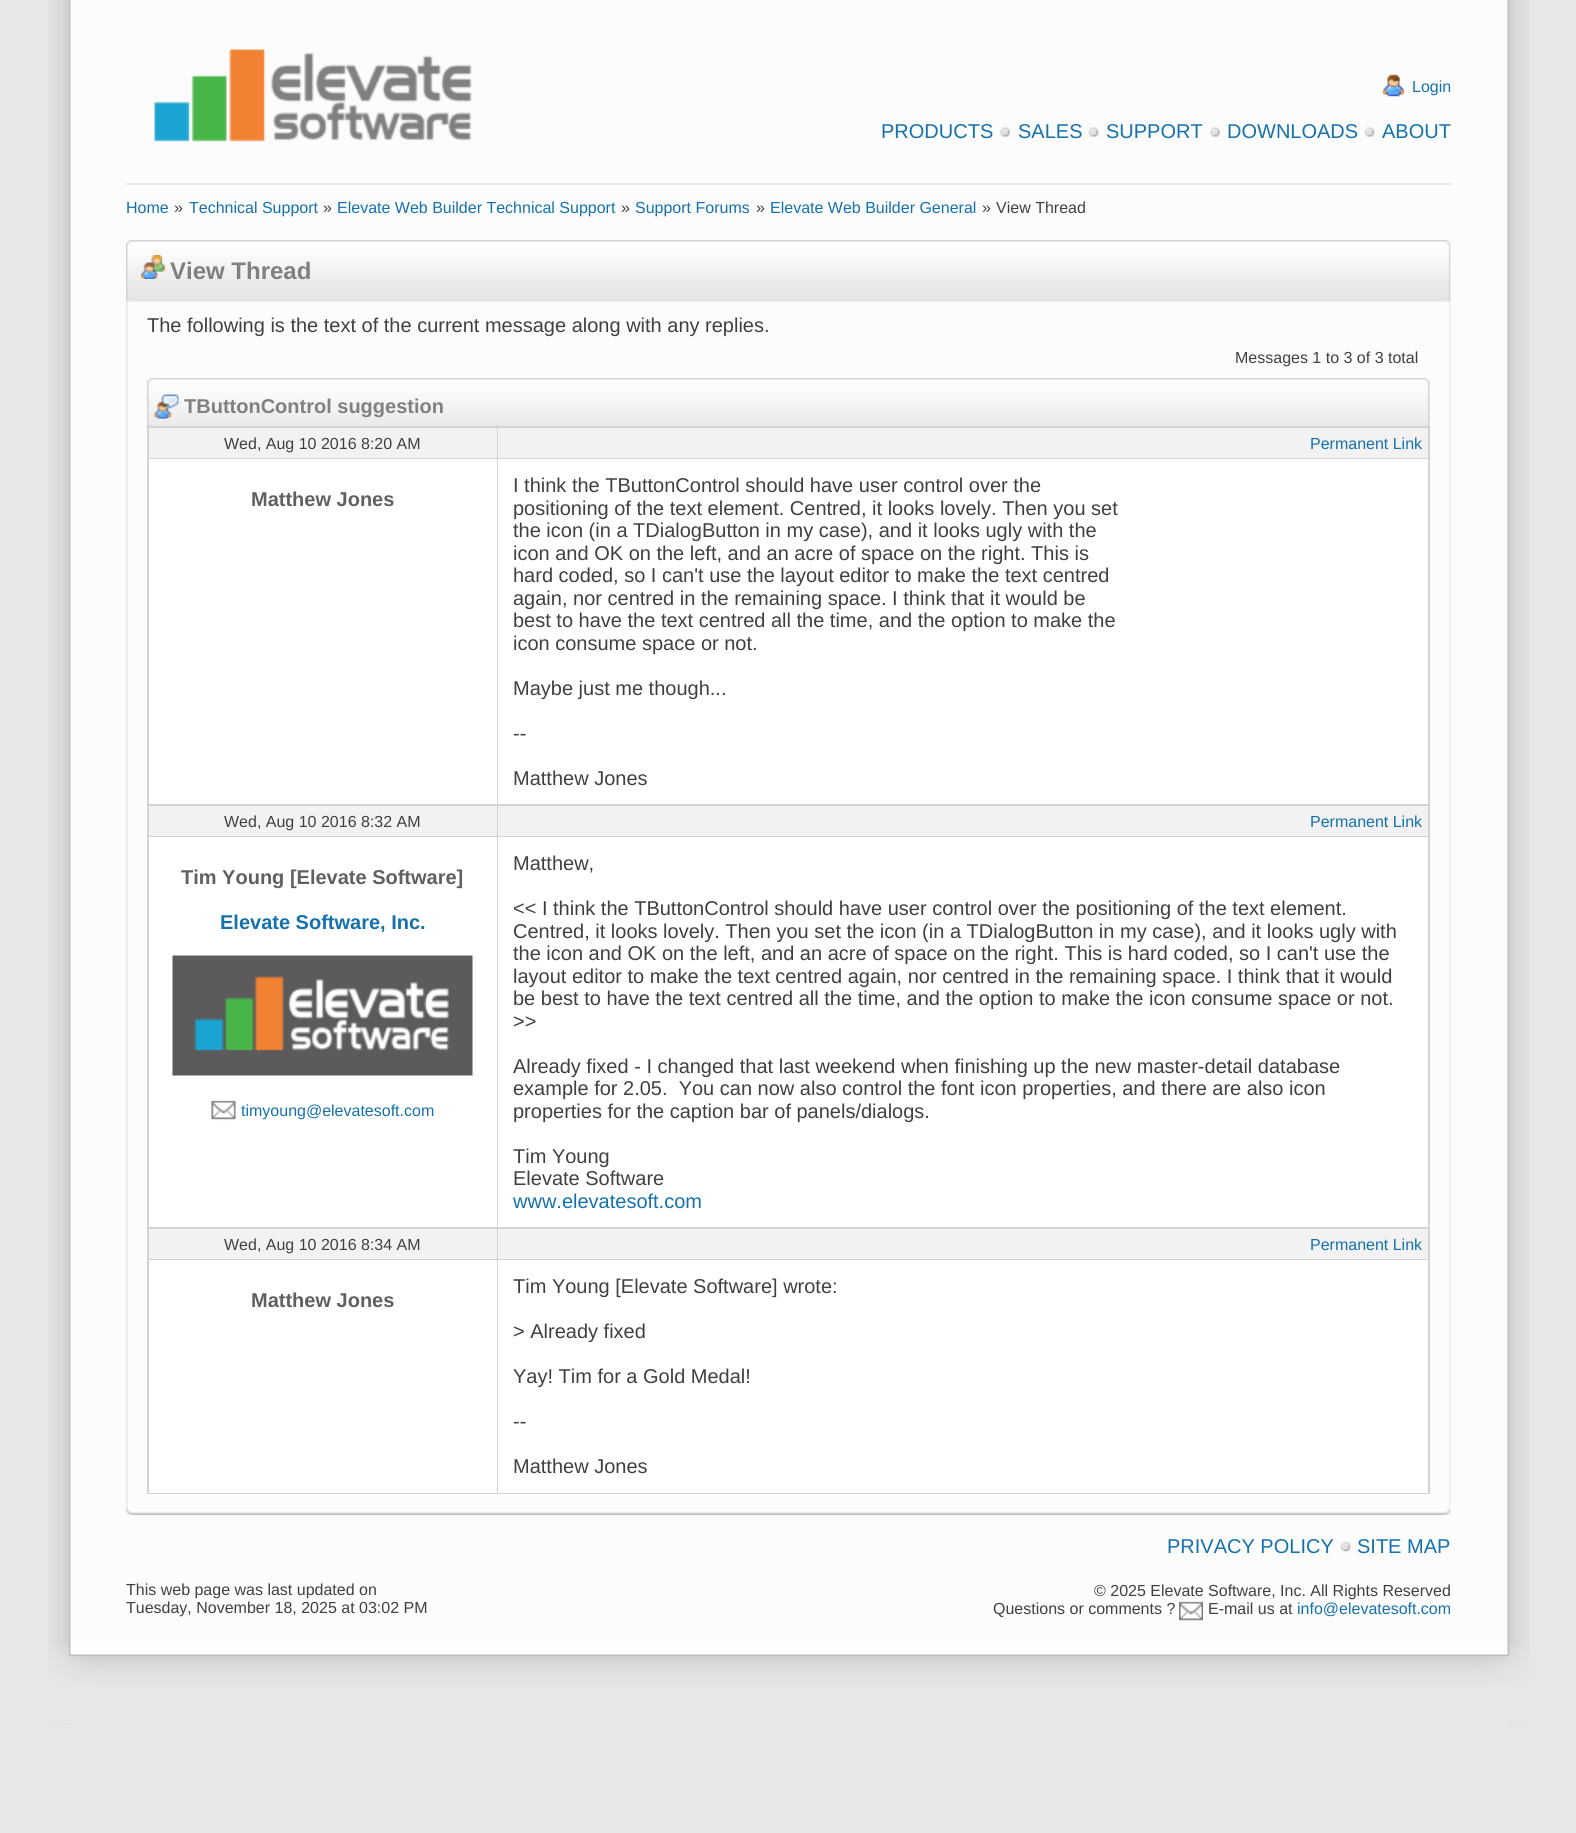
#include <cairo/cairo.h>
#include <math.h>
#include <stddef.h>

static cairo_t *cr;

static void use_color(int r, int g, int b) {
  cairo_set_source_rgb(cr, r / 255.0, g / 255.0, b / 255.0);
}

static void text(double x, double y, const char *s, const char *family, double size, int italic, int bold, int r, int g, int b) {
  cairo_select_font_face(cr, family, italic ? CAIRO_FONT_SLANT_ITALIC : CAIRO_FONT_SLANT_NORMAL,
    bold ? CAIRO_FONT_WEIGHT_BOLD : CAIRO_FONT_WEIGHT_NORMAL);
  cairo_set_font_size(cr, size);
  use_color(r, g, b);
  cairo_move_to(cr, x, y);
  cairo_show_text(cr, s);
}

static void box(double x, double y, double w, double h, int r, int g, int b) {
  use_color(r, g, b);
  cairo_rectangle(cr, x, y, w, h);
  cairo_fill(cr);
}

static void picture(const char *path, double x, double y, double w, double h) {
  cairo_surface_t *image = cairo_image_surface_create_from_png(path);
  cairo_save(cr);
  cairo_set_source_surface(cr, image, x, y);
  cairo_rectangle(cr, x, y, w, h);
  cairo_fill(cr);
  cairo_restore(cr);
  cairo_surface_destroy(image);
}

static void draw(void) {
  use_color(230, 231, 232);
  cairo_paint(cr);
  picture("img_01.png", 48, 0, 1482, 1724);
  picture("img_02.png", 154, 49, 318, 93);
  picture("img_03.png", 1382, 74, 23, 23);
  picture("img_04.png", 1000, 127, 10, 10);
  picture("img_05.png", 1088, 127, 11, 10);
  picture("img_06.png", 1210, 127, 10, 10);
  picture("img_07.png", 1364, 127, 11, 10);
  box(126, 183, 1325, 2, 230, 230, 230);
  picture("img_08.png", 126, 301, 2, 1208);
  picture("img_09.png", 1449, 240, 2, 1275);
  picture("img_10.png", 132, 1509, 1319, 6);
  picture("img_11.png", 126, 1509, 6, 6);
  picture("img_12.png", 1445, 1509, 6, 6);
  picture("img_13.png", 126, 240, 1325, 62);
  picture("img_14.png", 126, 240, 6, 62);
  picture("img_15.png", 1445, 240, 6, 62);
  picture("img_16.png", 141, 255, 24, 24);
  picture("img_17.png", 1429, 378, 1, 48);
  picture("img_18.png", 153, 378, 1277, 48);
  picture("img_19.png", 147, 378, 6, 48);
  picture("img_20.png", 1424, 378, 6, 48);
  picture("img_21.png", 154, 394, 25, 25);
  box(147, 426, 1283, 1068, 211, 211, 211);
  box(149, 428, 348, 30, 242, 242, 242);
  box(498, 428, 930, 30, 242, 242, 242);
  box(149, 459, 348, 345, 255, 255, 255);
  box(498, 459, 930, 345, 255, 255, 255);
  box(149, 806, 348, 30, 242, 242, 242);
  box(498, 806, 930, 30, 242, 242, 242);
  box(149, 837, 348, 390, 255, 255, 255);
  picture("img_22.png", 172, 955, 301, 121);
  picture("img_23.png", 211, 1100, 25, 21);
  box(498, 837, 930, 390, 255, 255, 255);
  box(149, 1229, 348, 30, 242, 242, 242);
  box(498, 1229, 930, 30, 242, 242, 242);
  box(149, 1260, 348, 233, 255, 255, 255);
  box(498, 1260, 930, 233, 255, 255, 255);
  picture("img_24.png", 1340, 1541, 11, 11);
  picture("img_25.png", 1179, 1601, 24, 21);
  picture("img_26.png", 48, 1646, 1482, 78);
  text(1412, 92, "Login", "Liberation Sans", 16, 0, 0, 21, 113, 172);
  text(881, 138, "PRODUCTS", "Liberation Sans", 20, 0, 0, 21, 113, 172);
  text(1018, 138, "SALES", "Liberation Sans", 20, 0, 0, 21, 113, 172);
  text(1106, 138, "SUPPORT", "Liberation Sans", 20, 0, 0, 21, 113, 172);
  text(1227, 138, "DOWNLOADS", "Liberation Sans", 20, 0, 0, 21, 113, 172);
  text(1382, 138, "ABOUT", "Liberation Sans", 20, 0, 0, 21, 113, 172);
  text(126, 213, "Home", "Liberation Sans", 16, 0, 0, 21, 113, 172);
  text(174, 213, "»", "Liberation Sans", 16, 0, 0, 64, 64, 64);
  text(189, 213, "Technical Support", "Liberation Sans", 16, 0, 0, 21, 113, 172);
  text(323, 213, "»", "Liberation Sans", 16, 0, 0, 64, 64, 64);
  text(337, 213, "Elevate Web Builder Technical Support", "Liberation Sans", 16, 0, 0, 21, 113, 172);
  text(621, 213, "»", "Liberation Sans", 16, 0, 0, 64, 64, 64);
  text(635, 213, "Support Forums", "Liberation Sans", 16, 0, 0, 21, 113, 172);
  text(756, 213, "»", "Liberation Sans", 16, 0, 0, 64, 64, 64);
  text(770, 213, "Elevate Web Builder General", "Liberation Sans", 16, 0, 0, 21, 113, 172);
  text(982, 213, "»", "Liberation Sans", 16, 0, 0, 64, 64, 64);
  text(996, 213, "View Thread", "Liberation Sans", 16, 0, 0, 64, 64, 64);
  text(170, 279, "View Thread", "Liberation Sans", 24, 0, 1, 128, 128, 128);
  text(147, 332, "The following is the text of the current message along with any replies.", "Liberation Sans", 20, 0, 0, 64, 64, 64);
  text(1235, 363, "Messages 1 to 3 of 3 total", "Liberation Sans", 16, 0, 0, 64, 64, 64);
  text(184, 413, "TButtonControl suggestion", "Liberation Sans", 20, 0, 1, 128, 128, 128);
  text(224, 449, "Wed, Aug 10 2016 8:20 AM", "Liberation Sans", 16, 0, 0, 64, 64, 64);
  text(1310, 449, "Permanent Link", "Liberation Sans", 16, 0, 0, 21, 113, 172);
  text(251, 506, "Matthew Jones", "Liberation Sans", 20, 0, 1, 96, 96, 96);
  text(513, 492, "I think the TButtonControl should have user control over the", "Liberation Sans", 20, 0, 0, 64, 64, 64);
  text(513, 515, "positioning of the text element. Centred, it looks lovely. Then you set", "Liberation Sans", 20, 0, 0, 64, 64, 64);
  text(513, 537, "the icon (in a TDialogButton in my case), and it looks ugly with the", "Liberation Sans", 20, 0, 0, 64, 64, 64);
  text(513, 560, "icon and OK on the left, and an acre of space on the right. This is", "Liberation Sans", 20, 0, 0, 64, 64, 64);
  text(513, 582, "hard coded, so I can't use the layout editor to make the text centred", "Liberation Sans", 20, 0, 0, 64, 64, 64);
  text(513, 605, "again, nor centred in the remaining space. I think that it would be", "Liberation Sans", 20, 0, 0, 64, 64, 64);
  text(513, 627, "best to have the text centred all the time, and the option to make the", "Liberation Sans", 20, 0, 0, 64, 64, 64);
  text(513, 650, "icon consume space or not.", "Liberation Sans", 20, 0, 0, 64, 64, 64);
  text(513, 695, "Maybe just me though...", "Liberation Sans", 20, 0, 0, 64, 64, 64);
  text(513, 740, "--", "Liberation Sans", 20, 0, 0, 64, 64, 64);
  text(513, 785, "Matthew Jones", "Liberation Sans", 20, 0, 0, 64, 64, 64);
  text(224, 827, "Wed, Aug 10 2016 8:32 AM", "Liberation Sans", 16, 0, 0, 64, 64, 64);
  text(1310, 827, "Permanent Link", "Liberation Sans", 16, 0, 0, 21, 113, 172);
  text(181, 884, "Tim Young [Elevate Software]", "Liberation Sans", 20, 0, 1, 96, 96, 96);
  text(220, 929, "Elevate Software, Inc.", "Liberation Sans", 20, 0, 1, 21, 113, 172);
  text(241, 1116, "timyoung@elevatesoft.com", "Liberation Sans", 16, 0, 0, 21, 113, 172);
  text(513, 870, "Matthew,", "Liberation Sans", 20, 0, 0, 64, 64, 64);
  text(513, 915, "<< I think the TButtonControl should have user control over the positioning of the text element.", "Liberation Sans", 20, 0, 0, 64, 64, 64);
  text(513, 938, "Centred, it looks lovely. Then you set the icon (in a TDialogButton in my case), and it looks ugly with", "Liberation Sans", 20, 0, 0, 64, 64, 64);
  text(513, 960, "the icon and OK on the left, and an acre of space on the right. This is hard coded, so I can't use the", "Liberation Sans", 20, 0, 0, 64, 64, 64);
  text(513, 983, "layout editor to make the text centred again, nor centred in the remaining space. I think that it would", "Liberation Sans", 20, 0, 0, 64, 64, 64);
  text(513, 1005, "be best to have the text centred all the time, and the option to make the icon consume space or not.", "Liberation Sans", 20, 0, 0, 64, 64, 64);
  text(513, 1028, ">>", "Liberation Sans", 20, 0, 0, 64, 64, 64);
  text(513, 1073, "Already fixed - I changed that last weekend when finishing up the new master-detail database", "Liberation Sans", 20, 0, 0, 64, 64, 64);
  text(513, 1095, "example for 2.05.  You can now also control the font icon properties, and there are also icon", "Liberation Sans", 20, 0, 0, 64, 64, 64);
  text(513, 1118, "properties for the caption bar of panels/dialogs.", "Liberation Sans", 20, 0, 0, 64, 64, 64);
  text(513, 1163, "Tim Young", "Liberation Sans", 20, 0, 0, 64, 64, 64);
  text(513, 1185, "Elevate Software", "Liberation Sans", 20, 0, 0, 64, 64, 64);
  text(513, 1208, "www.elevatesoft.com", "Liberation Sans", 20, 0, 0, 21, 113, 172);
  text(224, 1250, "Wed, Aug 10 2016 8:34 AM", "Liberation Sans", 16, 0, 0, 64, 64, 64);
  text(1310, 1250, "Permanent Link", "Liberation Sans", 16, 0, 0, 21, 113, 172);
  text(251, 1307, "Matthew Jones", "Liberation Sans", 20, 0, 1, 96, 96, 96);
  text(513, 1293, "Tim Young [Elevate Software] wrote:", "Liberation Sans", 20, 0, 0, 64, 64, 64);
  text(513, 1338, "> Already fixed", "Liberation Sans", 20, 0, 0, 64, 64, 64);
  text(513, 1383, "Yay! Tim for a Gold Medal!", "Liberation Sans", 20, 0, 0, 64, 64, 64);
  text(513, 1428, "--", "Liberation Sans", 20, 0, 0, 64, 64, 64);
  text(513, 1473, "Matthew Jones", "Liberation Sans", 20, 0, 0, 64, 64, 64);
  text(126, 1595, "This web page was last updated on", "Liberation Sans", 16, 0, 0, 64, 64, 64);
  text(126, 1613, "Tuesday, November 18, 2025 at 03:02 PM", "Liberation Sans", 16, 0, 0, 64, 64, 64);
  text(1167, 1553, "PRIVACY POLICY", "Liberation Sans", 20, 0, 0, 21, 113, 172);
  text(1357, 1553, "SITE MAP", "Liberation Sans", 20, 0, 0, 21, 113, 172);
  text(1094, 1596, "© 2025 Elevate Software, Inc. All Rights Reserved", "Liberation Sans", 16, 0, 0, 64, 64, 64);
  text(993, 1614, "Questions or comments ?", "Liberation Sans", 16, 0, 0, 64, 64, 64);
  text(1208, 1614, "E-mail us at", "Liberation Sans", 16, 0, 0, 64, 64, 64);
  text(1297, 1614, "info@elevatesoft.com", "Liberation Sans", 16, 0, 0, 21, 113, 172);
}

int main(void) {
  cairo_surface_t *surface = cairo_image_surface_create(CAIRO_FORMAT_RGB24, 1576, 1833);
  cr = cairo_create(surface);
  cairo_font_options_t *options = cairo_font_options_create();
  cairo_font_options_set_hint_metrics(options, CAIRO_HINT_METRICS_OFF);
  cairo_font_options_set_hint_style(options, CAIRO_HINT_STYLE_NONE);
  cairo_set_font_options(cr, options);
  cairo_set_miter_limit(cr, 4);
  draw();
  cairo_surface_write_to_png(surface, "out.png");
  cairo_font_options_destroy(options);
  cairo_destroy(cr);
  cairo_surface_destroy(surface);
  return 0;
}
